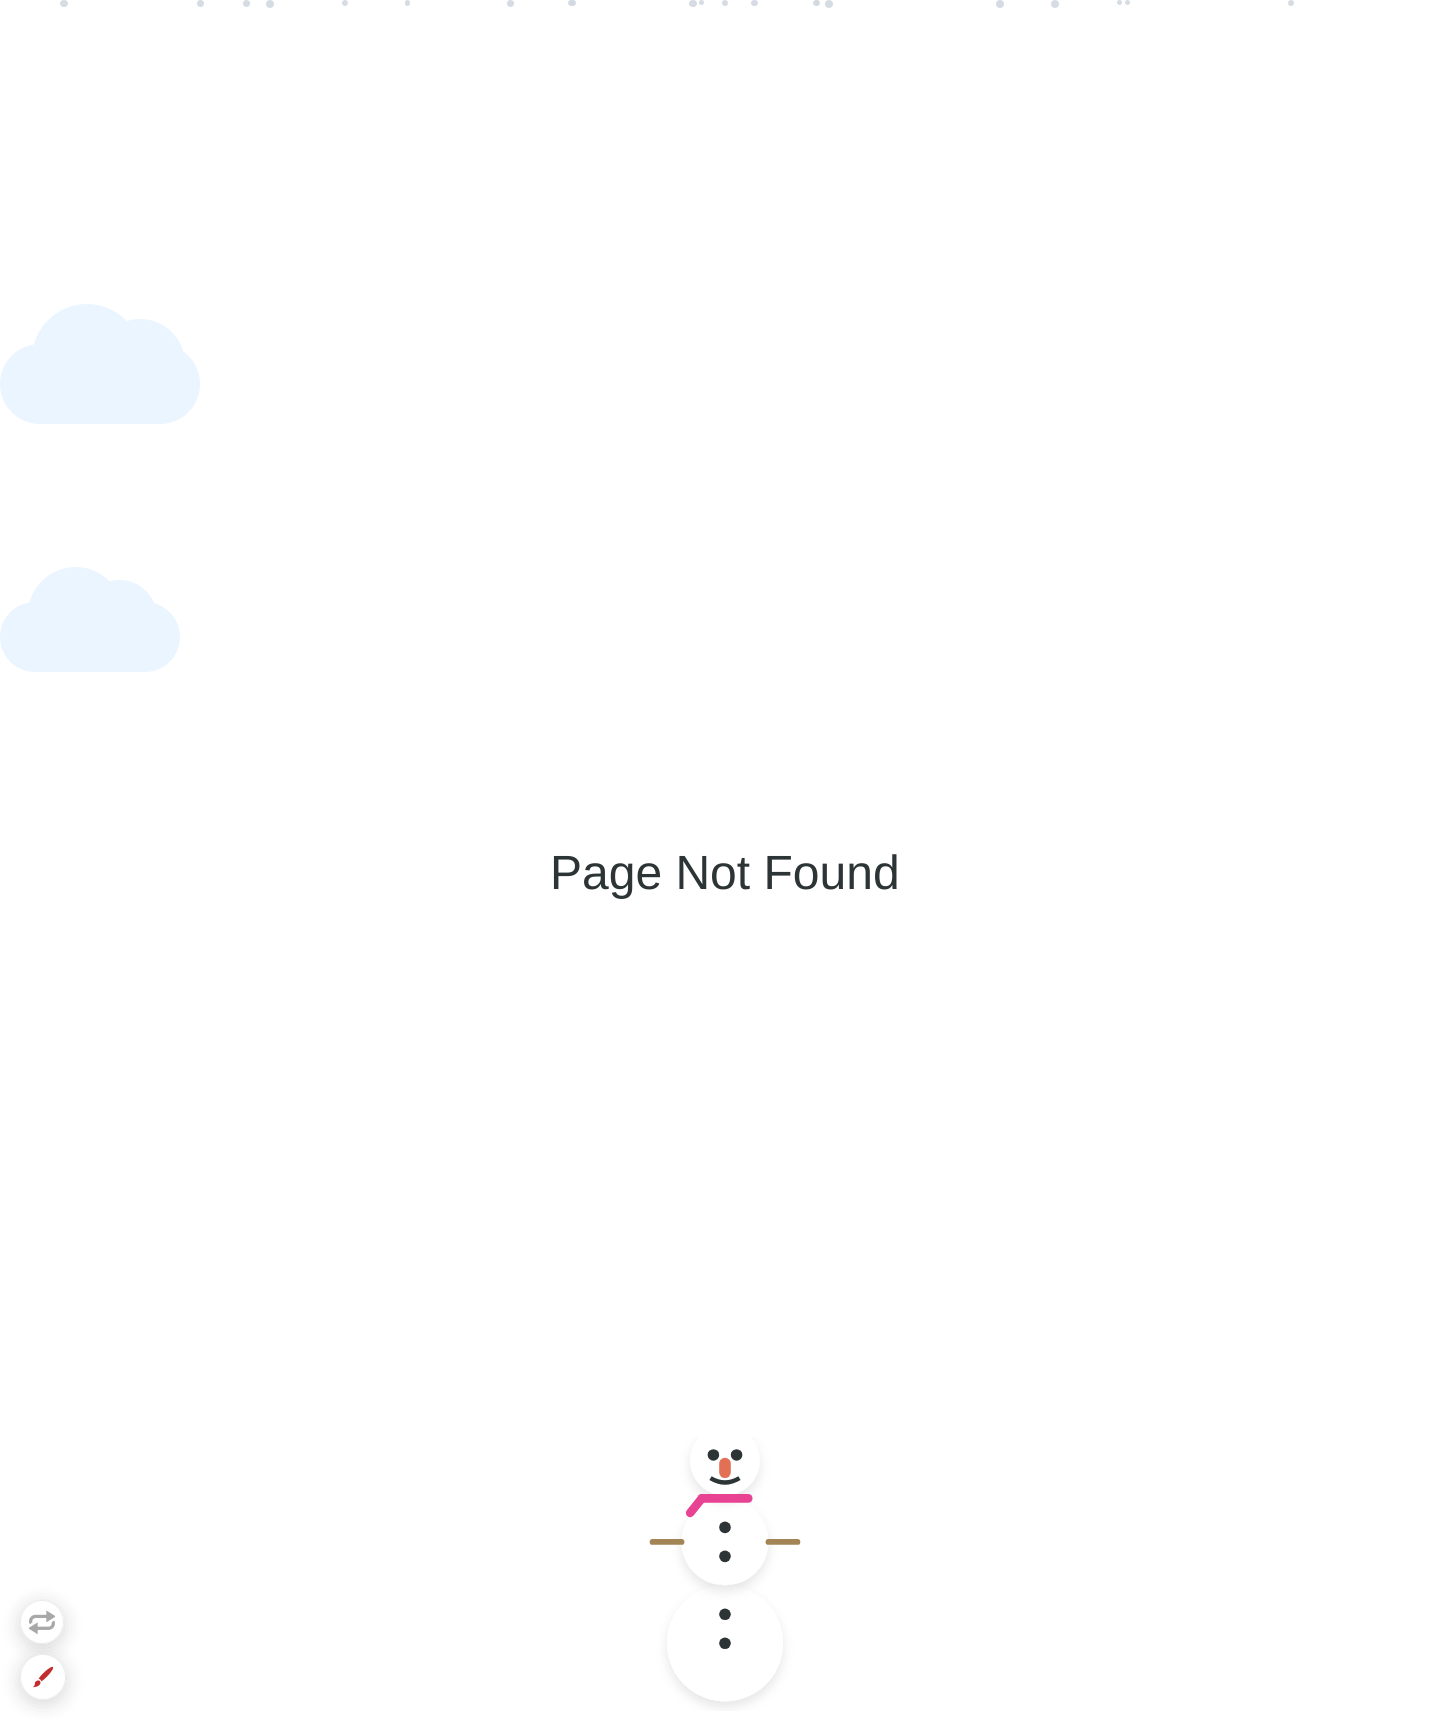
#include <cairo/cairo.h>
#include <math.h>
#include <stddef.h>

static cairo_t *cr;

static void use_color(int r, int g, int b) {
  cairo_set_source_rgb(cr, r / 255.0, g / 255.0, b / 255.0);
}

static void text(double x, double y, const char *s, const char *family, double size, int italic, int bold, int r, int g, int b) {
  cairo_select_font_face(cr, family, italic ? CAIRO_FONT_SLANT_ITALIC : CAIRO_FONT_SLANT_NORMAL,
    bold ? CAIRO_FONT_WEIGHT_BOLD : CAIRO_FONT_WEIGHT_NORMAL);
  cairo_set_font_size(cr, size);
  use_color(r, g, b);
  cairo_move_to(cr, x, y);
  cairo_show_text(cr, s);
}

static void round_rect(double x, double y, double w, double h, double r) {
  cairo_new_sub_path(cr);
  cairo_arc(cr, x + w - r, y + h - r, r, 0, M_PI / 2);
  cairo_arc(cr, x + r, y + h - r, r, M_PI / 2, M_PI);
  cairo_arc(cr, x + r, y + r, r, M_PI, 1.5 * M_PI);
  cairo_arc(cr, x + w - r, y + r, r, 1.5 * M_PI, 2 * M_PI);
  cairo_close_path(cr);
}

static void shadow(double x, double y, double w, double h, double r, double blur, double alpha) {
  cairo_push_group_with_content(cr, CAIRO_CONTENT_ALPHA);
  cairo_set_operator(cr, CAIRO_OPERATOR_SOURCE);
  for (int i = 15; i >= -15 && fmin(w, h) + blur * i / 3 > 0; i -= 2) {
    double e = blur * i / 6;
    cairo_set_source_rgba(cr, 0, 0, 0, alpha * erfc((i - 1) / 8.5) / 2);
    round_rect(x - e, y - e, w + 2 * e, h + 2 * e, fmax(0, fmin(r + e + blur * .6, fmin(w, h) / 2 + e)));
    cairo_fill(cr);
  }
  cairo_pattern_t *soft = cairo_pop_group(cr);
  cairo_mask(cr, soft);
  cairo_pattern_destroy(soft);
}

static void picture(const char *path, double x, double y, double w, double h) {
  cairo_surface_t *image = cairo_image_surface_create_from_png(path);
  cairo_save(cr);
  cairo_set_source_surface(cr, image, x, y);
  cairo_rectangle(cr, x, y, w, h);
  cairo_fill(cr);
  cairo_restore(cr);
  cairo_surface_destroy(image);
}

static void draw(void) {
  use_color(255, 255, 255);
  cairo_paint(cr);
  use_color(214, 220, 227);
  round_rect(60, 0, 8, 7, 3.5);
  cairo_fill(cr);
  cairo_arc(cr, 200.5, 3.5, 3.5, 0, 2 * M_PI);
  cairo_fill(cr);
  cairo_arc(cr, 246.5, 3.5, 3.5, 0, 2 * M_PI);
  cairo_fill(cr);
  cairo_arc(cr, 270, 4, 4, 0, 2 * M_PI);
  cairo_fill(cr);
  cairo_arc(cr, 345, 3, 3, 0, 2 * M_PI);
  cairo_fill(cr);
  round_rect(405, 0, 5, 6, 2.5);
  cairo_fill(cr);
  cairo_arc(cr, 510.5, 3.5, 3.5, 0, 2 * M_PI);
  cairo_fill(cr);
  cairo_arc(cr, 573, 3, 3, 0, 2 * M_PI);
  cairo_fill(cr);
  cairo_set_source_rgba(cr, 0.82, 0.847, 0.878, 0.9);
  round_rect(568, 0, 7, 6, 3);
  cairo_fill(cr);
  use_color(214, 220, 227);
  round_rect(689, 0, 8, 7, 3.5);
  cairo_fill(cr);
  cairo_arc(cr, 701.5, 2.5, 2.5, 0, 2 * M_PI);
  cairo_fill(cr);
  cairo_arc(cr, 725, 3, 3, 0, 2 * M_PI);
  cairo_fill(cr);
  round_rect(751, 0, 7, 6, 3);
  cairo_fill(cr);
  round_rect(813, 0, 7, 6, 3);
  cairo_fill(cr);
  cairo_set_source_rgba(cr, 0.82, 0.847, 0.878, 0.9);
  round_rect(815, 0, 4, 5, 2);
  cairo_fill(cr);
  use_color(214, 220, 227);
  cairo_arc(cr, 829, 4, 4, 0, 2 * M_PI);
  cairo_fill(cr);
  cairo_arc(cr, 1000, 4, 4, 0, 2 * M_PI);
  cairo_fill(cr);
  cairo_arc(cr, 1055, 4, 4, 0, 2 * M_PI);
  cairo_fill(cr);
  cairo_arc(cr, 1119.5, 2.5, 2.5, 0, 2 * M_PI);
  cairo_fill(cr);
  cairo_arc(cr, 1127.5, 2.5, 2.5, 0, 2 * M_PI);
  cairo_fill(cr);
  cairo_arc(cr, 1291, 3, 3, 0, 2 * M_PI);
  cairo_fill(cr);
  use_color(234, 245, 255);
  round_rect(0, 344, 200, 80, 40);
  cairo_fill(cr);
  cairo_arc(cr, 87, 359, 55, 0, 2 * M_PI);
  cairo_fill(cr);
  cairo_arc(cr, 140, 364, 45, 0, 2 * M_PI);
  cairo_fill(cr);
  round_rect(0, 602, 180, 70, 35);
  cairo_fill(cr);
  cairo_arc(cr, 75.5, 614.5, 47.5, 0, 2 * M_PI);
  cairo_fill(cr);
  cairo_arc(cr, 119.5, 617.5, 37.5, 0, 2 * M_PI);
  cairo_fill(cr);
  picture("img_01.png", 649, 1437, 152, 274);
  cairo_save(cr);
  cairo_set_fill_rule(cr, CAIRO_FILL_RULE_EVEN_ODD);
  cairo_new_path(cr);
  cairo_move_to(cr, 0, 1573);
  cairo_line_to(cr, 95, 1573);
  cairo_line_to(cr, 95, 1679);
  cairo_line_to(cr, 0, 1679);
  cairo_close_path(cr);
  cairo_move_to(cr, 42, 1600);
  cairo_curve_to(cr, 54, 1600, 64, 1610, 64, 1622);
  cairo_curve_to(cr, 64, 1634, 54, 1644, 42, 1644);
  cairo_curve_to(cr, 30, 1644, 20, 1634, 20, 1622);
  cairo_curve_to(cr, 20, 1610, 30, 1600, 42, 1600);
  cairo_close_path(cr);
  cairo_clip(cr);
  use_color(0, 0, 0);
  shadow(20, 1604, 44, 44, 22, 10, 0.15);
  cairo_restore(cr);
  cairo_set_source_rgba(cr, 1, 1, 1, 0.95);
  cairo_arc(cr, 42, 1622, 22, 0, 2 * M_PI);
  cairo_fill(cr);
  cairo_arc(cr, 42, 1622, 21.5, 0, 2 * M_PI);
  cairo_set_source_rgba(cr, 0, 0, 0, 0.08);
  cairo_set_line_width(cr, 1);
  cairo_stroke(cr);
  picture("img_02.png", 29, 1610, 26, 25);
  cairo_save(cr);
  cairo_set_fill_rule(cr, CAIRO_FILL_RULE_EVEN_ODD);
  cairo_new_path(cr);
  cairo_move_to(cr, 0, 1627);
  cairo_line_to(cr, 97, 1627);
  cairo_line_to(cr, 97, 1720);
  cairo_line_to(cr, 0, 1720);
  cairo_close_path(cr);
  cairo_move_to(cr, 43, 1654);
  cairo_curve_to(cr, 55.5, 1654, 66, 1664.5, 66, 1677);
  cairo_curve_to(cr, 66, 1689.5, 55.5, 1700, 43, 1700);
  cairo_curve_to(cr, 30.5, 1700, 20, 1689.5, 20, 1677);
  cairo_curve_to(cr, 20, 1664.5, 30.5, 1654, 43, 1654);
  cairo_close_path(cr);
  cairo_clip(cr);
  use_color(0, 0, 0);
  shadow(20, 1658, 46, 46, 23, 10, 0.15);
  cairo_restore(cr);
  cairo_set_source_rgba(cr, 1, 1, 1, 0.95);
  cairo_arc(cr, 43, 1677, 23, 0, 2 * M_PI);
  cairo_fill(cr);
  cairo_arc(cr, 43, 1677, 22.5, 0, 2 * M_PI);
  cairo_set_source_rgba(cr, 0, 0, 0, 0.08);
  cairo_stroke(cr);
  picture("img_03.png", 33, 1666, 21, 22);
  text(550, 889, "Page Not Found", "Liberation Sans", 48, 0, 0, 45, 52, 54);
}

int main(void) {
  cairo_surface_t *surface = cairo_image_surface_create(CAIRO_FORMAT_RGB24, 1449, 1720);
  cr = cairo_create(surface);
  cairo_font_options_t *options = cairo_font_options_create();
  cairo_font_options_set_hint_metrics(options, CAIRO_HINT_METRICS_OFF);
  cairo_font_options_set_hint_style(options, CAIRO_HINT_STYLE_NONE);
  cairo_set_font_options(cr, options);
  cairo_set_miter_limit(cr, 4);
  draw();
  cairo_surface_write_to_png(surface, "out.png");
  cairo_font_options_destroy(options);
  cairo_destroy(cr);
  cairo_surface_destroy(surface);
  return 0;
}
